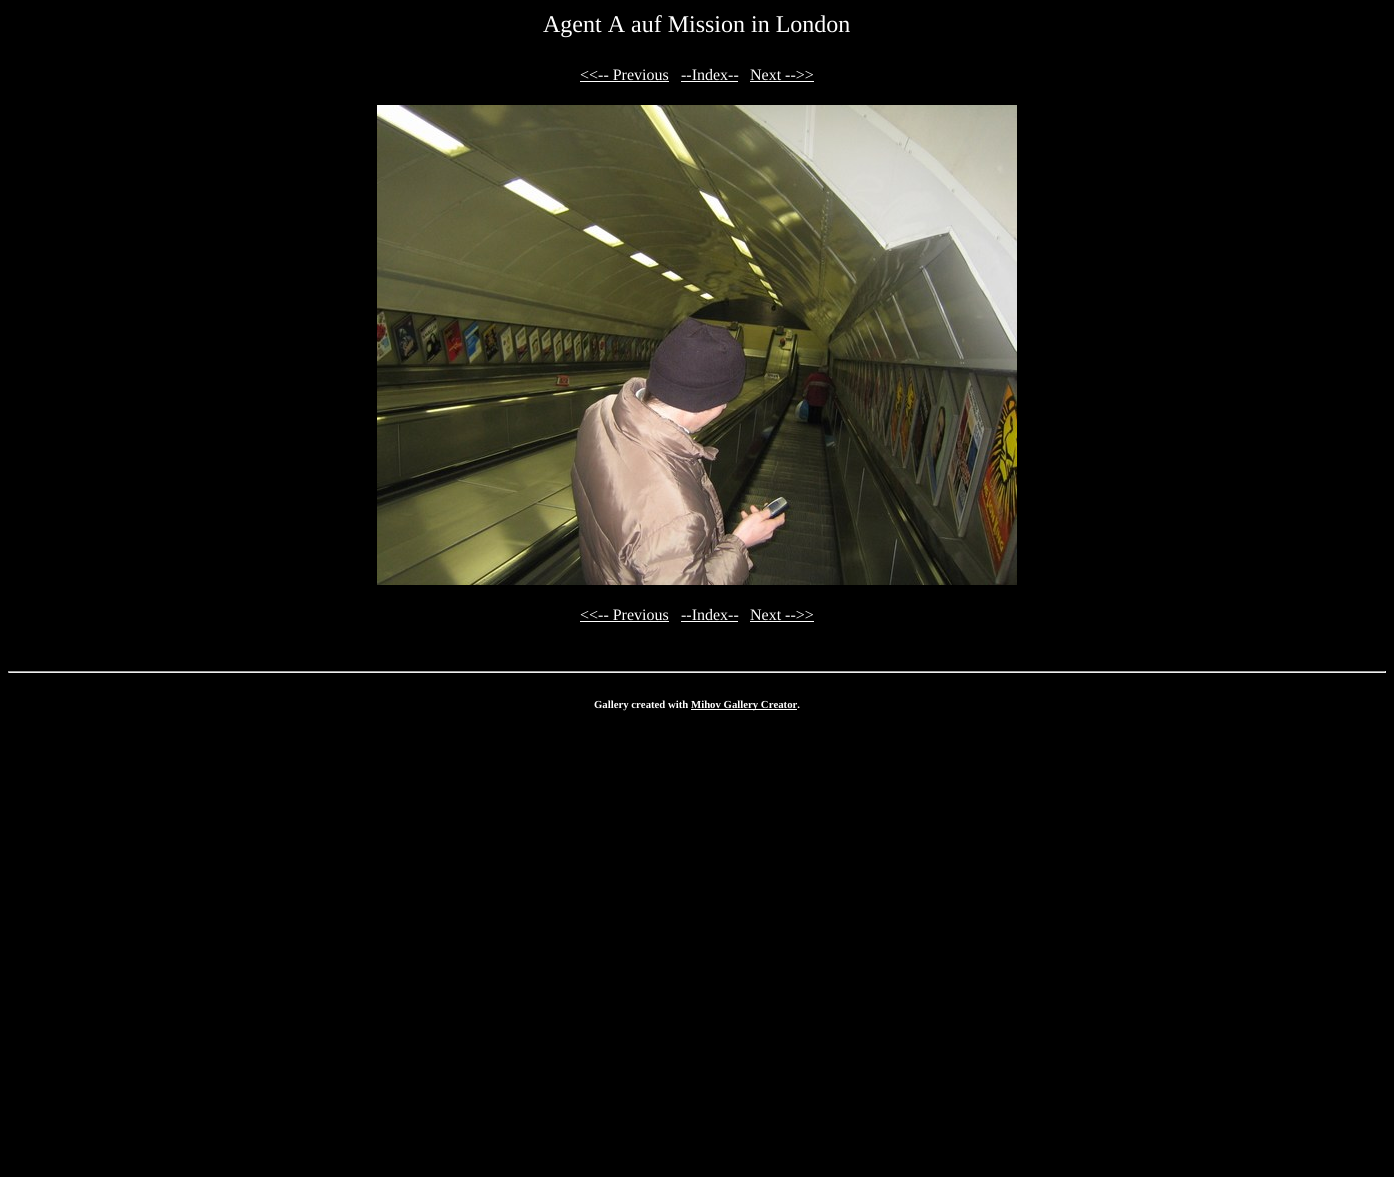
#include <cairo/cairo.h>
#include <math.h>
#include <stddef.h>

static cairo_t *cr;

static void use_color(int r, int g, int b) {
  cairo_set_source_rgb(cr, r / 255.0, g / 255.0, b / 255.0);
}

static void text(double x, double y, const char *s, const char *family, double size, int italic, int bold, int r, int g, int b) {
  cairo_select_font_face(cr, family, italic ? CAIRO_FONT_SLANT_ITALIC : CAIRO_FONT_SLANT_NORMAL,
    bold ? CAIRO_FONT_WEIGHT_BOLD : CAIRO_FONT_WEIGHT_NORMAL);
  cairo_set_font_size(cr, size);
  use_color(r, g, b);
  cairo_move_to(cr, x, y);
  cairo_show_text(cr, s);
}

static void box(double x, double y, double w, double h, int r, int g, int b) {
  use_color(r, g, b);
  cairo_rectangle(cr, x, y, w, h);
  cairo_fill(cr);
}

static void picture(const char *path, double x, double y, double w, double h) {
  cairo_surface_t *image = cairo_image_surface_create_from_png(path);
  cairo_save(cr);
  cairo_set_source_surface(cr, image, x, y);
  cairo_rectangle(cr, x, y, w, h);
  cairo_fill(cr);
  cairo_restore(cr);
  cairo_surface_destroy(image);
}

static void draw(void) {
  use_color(0, 0, 0);
  cairo_paint(cr);
  box(580, 81, 89, 1, 255, 255, 255);
  box(681, 81, 57, 1, 255, 255, 255);
  box(750, 81, 64, 1, 255, 255, 255);
  picture("img_01.png", 377, 105, 640, 480);
  box(580, 621, 89, 1, 255, 255, 255);
  box(681, 621, 57, 1, 255, 255, 255);
  box(750, 621, 64, 1, 255, 255, 255);
  box(8, 671, 1378, 1, 159, 159, 159);
  box(1385, 671, 1, 2, 238, 238, 238);
  box(8, 672, 1378, 1, 238, 238, 238);
  box(8, 671, 1, 2, 159, 159, 159);
  box(691, 709, 106, 1, 255, 255, 255);
  text(543, 32, "Agent A auf Mission in London", "Liberation Serif", 24, 0, 0, 255, 255, 255);
  text(580, 80, "<<-- Previous", "Liberation Serif", 16, 0, 0, 255, 255, 255);
  text(681, 80, "--Index--", "Liberation Serif", 16, 0, 0, 255, 255, 255);
  text(750, 80, "Next -->>", "Liberation Serif", 16, 0, 0, 255, 255, 255);
  text(580, 620, "<<-- Previous", "Liberation Serif", 16, 0, 0, 255, 255, 255);
  text(681, 620, "--Index--", "Liberation Serif", 16, 0, 0, 255, 255, 255);
  text(750, 620, "Next -->>", "Liberation Serif", 16, 0, 0, 255, 255, 255);
  text(594, 708, "Gallery created with", "Liberation Serif", 10.75, 0, 1, 255, 255, 255);
  text(691, 708, "Mihov Gallery Creator.", "Liberation Serif", 10.75, 0, 1, 255, 255, 255);
}

int main(void) {
  cairo_surface_t *surface = cairo_image_surface_create(CAIRO_FORMAT_RGB24, 1394, 1177);
  cr = cairo_create(surface);
  cairo_font_options_t *options = cairo_font_options_create();
  cairo_font_options_set_hint_metrics(options, CAIRO_HINT_METRICS_OFF);
  cairo_font_options_set_hint_style(options, CAIRO_HINT_STYLE_NONE);
  cairo_set_font_options(cr, options);
  cairo_set_miter_limit(cr, 4);
  draw();
  cairo_surface_write_to_png(surface, "out.png");
  cairo_font_options_destroy(options);
  cairo_destroy(cr);
  cairo_surface_destroy(surface);
  return 0;
}
